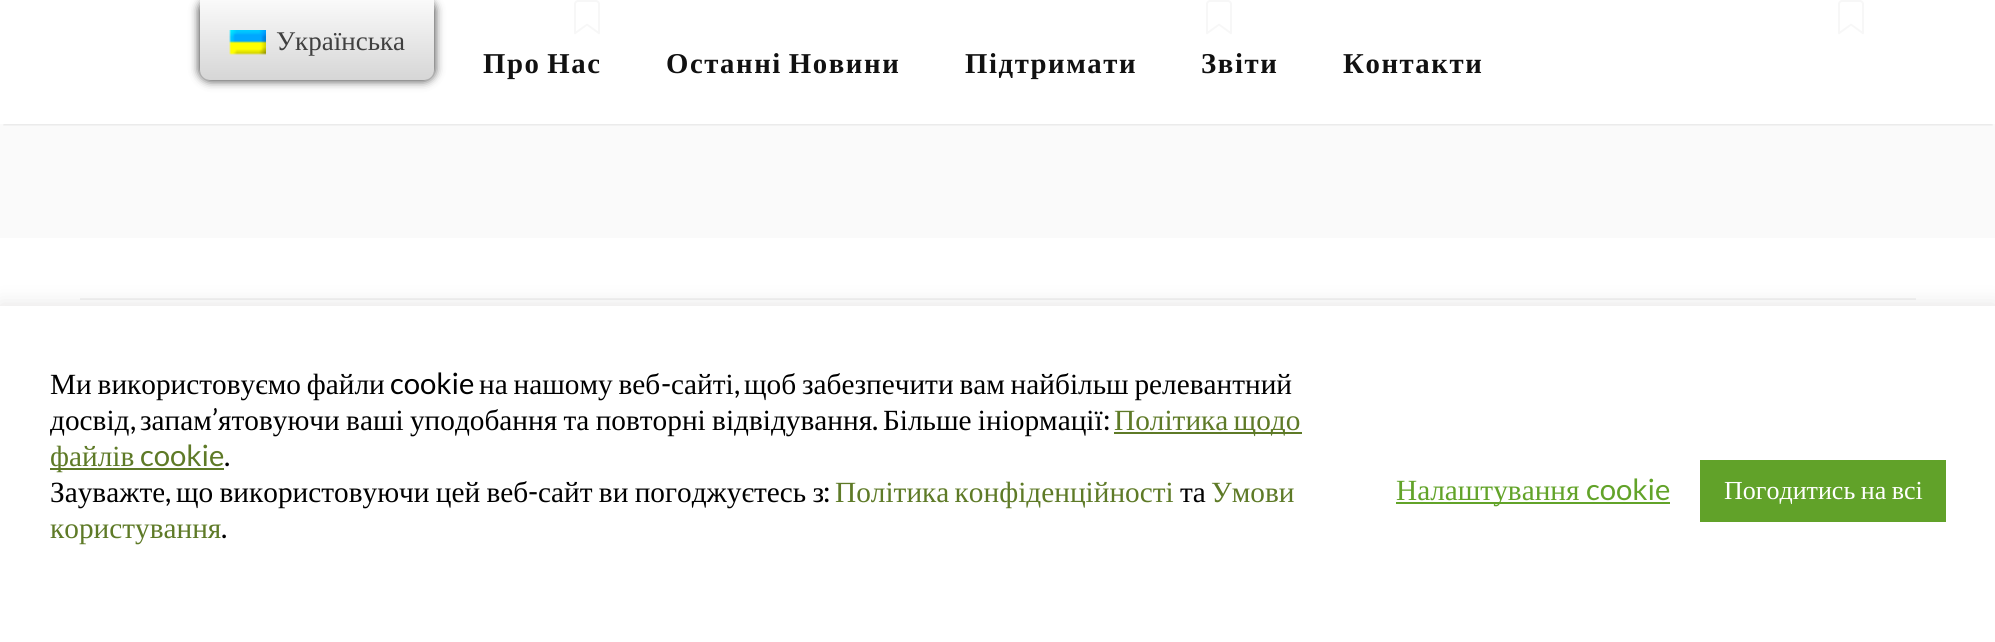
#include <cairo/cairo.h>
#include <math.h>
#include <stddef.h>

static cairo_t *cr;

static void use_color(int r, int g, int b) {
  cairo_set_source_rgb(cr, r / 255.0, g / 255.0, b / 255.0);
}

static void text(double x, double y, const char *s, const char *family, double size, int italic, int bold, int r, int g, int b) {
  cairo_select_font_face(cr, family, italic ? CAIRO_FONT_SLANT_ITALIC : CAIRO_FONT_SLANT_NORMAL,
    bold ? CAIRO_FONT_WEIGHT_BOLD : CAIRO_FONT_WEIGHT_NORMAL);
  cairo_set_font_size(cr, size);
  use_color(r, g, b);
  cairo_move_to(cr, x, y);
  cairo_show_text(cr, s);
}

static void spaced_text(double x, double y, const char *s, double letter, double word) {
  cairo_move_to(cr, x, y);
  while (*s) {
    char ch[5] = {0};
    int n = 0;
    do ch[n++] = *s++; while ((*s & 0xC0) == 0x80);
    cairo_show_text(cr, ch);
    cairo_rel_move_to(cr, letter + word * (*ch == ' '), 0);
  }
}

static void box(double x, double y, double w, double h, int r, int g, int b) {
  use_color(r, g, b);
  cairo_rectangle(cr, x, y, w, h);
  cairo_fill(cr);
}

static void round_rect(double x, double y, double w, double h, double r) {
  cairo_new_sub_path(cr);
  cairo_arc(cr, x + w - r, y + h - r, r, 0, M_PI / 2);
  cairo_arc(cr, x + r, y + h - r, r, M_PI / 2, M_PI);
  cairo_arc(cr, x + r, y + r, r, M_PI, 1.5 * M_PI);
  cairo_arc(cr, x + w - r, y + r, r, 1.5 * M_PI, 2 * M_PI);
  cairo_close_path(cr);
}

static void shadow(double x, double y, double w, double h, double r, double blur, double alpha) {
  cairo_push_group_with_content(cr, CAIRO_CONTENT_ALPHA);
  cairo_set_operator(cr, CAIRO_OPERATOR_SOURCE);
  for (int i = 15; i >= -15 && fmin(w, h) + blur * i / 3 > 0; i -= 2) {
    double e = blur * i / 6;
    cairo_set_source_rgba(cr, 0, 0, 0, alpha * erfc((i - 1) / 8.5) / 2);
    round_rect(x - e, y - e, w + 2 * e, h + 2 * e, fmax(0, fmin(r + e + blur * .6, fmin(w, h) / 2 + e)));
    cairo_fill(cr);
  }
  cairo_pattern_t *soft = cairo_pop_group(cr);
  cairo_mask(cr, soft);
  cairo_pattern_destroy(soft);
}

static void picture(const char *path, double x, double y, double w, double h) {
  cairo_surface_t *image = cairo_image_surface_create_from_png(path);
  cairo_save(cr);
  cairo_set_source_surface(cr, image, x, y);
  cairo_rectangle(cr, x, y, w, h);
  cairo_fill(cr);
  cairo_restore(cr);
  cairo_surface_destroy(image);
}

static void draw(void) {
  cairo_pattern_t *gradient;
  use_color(255, 255, 255);
  cairo_paint(cr);
  box(0, 124, 1995, 114, 250, 250, 250);
  picture("img_01.png", 574, 0, 26, 35);
  picture("img_01.png", 1206, 0, 26, 35);
  picture("img_01.png", 1838, 0, 26, 35);
  use_color(33, 33, 33);
  shadow(200, 0, 234, 80, 10, 5, 1);
  cairo_save(cr);
  cairo_rectangle(cr, 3, 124, 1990, 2);
  cairo_clip(cr);
  use_color(0, 0, 0);
  shadow(4, -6, 1988, 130, 0, 2, 0.15);
  cairo_restore(cr);
  gradient = cairo_pattern_create_linear(317, 80, 317, 0);
  cairo_pattern_add_color_stop_rgba(gradient, 0, 0.839, 0.839, 0.839, 1);
  cairo_pattern_add_color_stop_rgba(gradient, 1, 0.98, 0.98, 0.98, 1);
  cairo_set_source(cr, gradient);
  cairo_pattern_destroy(gradient);
  cairo_new_path(cr);
  cairo_move_to(cr, 200, 0);
  cairo_line_to(cr, 434, 0);
  cairo_line_to(cr, 434, 70);
  cairo_curve_to(cr, 434, 75.5, 429.5, 80, 424, 80);
  cairo_line_to(cr, 210, 80);
  cairo_curve_to(cr, 204.5, 80, 200, 75.5, 200, 70);
  cairo_close_path(cr);
  cairo_fill(cr);
  picture("img_02.png", 229, 30, 37, 25);
  box(80, 298, 1836, 2, 242, 242, 242);
  use_color(172, 171, 171);
  shadow(0, 304, 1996, 336, 0, 10, 0.3);
  box(0, 306, 1995, 336, 255, 255, 255);
  box(1114, 432, 188, 2, 94, 122, 39);
  box(50, 468, 174, 2, 94, 122, 39);
  box(1396, 502, 274, 2, 98, 163, 41);
  box(1700, 460, 246, 62, 97, 162, 41);
  text(276, 50, "Українська", "Liberation Serif", 27, 0, 0, 64, 64, 64);
  cairo_select_font_face(cr, "Liberation Serif", CAIRO_FONT_SLANT_NORMAL, CAIRO_FONT_WEIGHT_BOLD);
  cairo_set_font_size(cr, 28.75);
  use_color(17, 17, 17);
  spaced_text(483, 73, "Про Нас", 1.6, -2);
  spaced_text(666, 73, "Останні Новини", 1.6, -2);
  spaced_text(965, 73, "Підтримати", 1.6, 0);
  spaced_text(1201, 73, "Звіти", 1.6, 0);
  spaced_text(1343, 73, "Контакти", 1.6, 0);
  cairo_select_font_face(cr, "Liberation Serif", CAIRO_FONT_SLANT_NORMAL, CAIRO_FONT_WEIGHT_NORMAL);
  cairo_set_font_size(cr, 29.3);
  use_color(0, 0, 0);
  spaced_text(50, 394, "Ми використовуємо файли", 0, -1.5);
  text(390, 394, "cookie", "Lato", 29.3, 0, 0, 0, 0, 0);
  cairo_select_font_face(cr, "Liberation Serif", CAIRO_FONT_SLANT_NORMAL, CAIRO_FONT_WEIGHT_NORMAL);
  spaced_text(479, 394, "на нашому веб", 0, -1.5);
  text(661, 394, "-", "Lato", 29.3, 0, 0, 0, 0, 0);
  text(671, 394, "сайті", "Liberation Serif", 29.3, 0, 0, 0, 0, 0);
  spaced_text(744, 394, "щоб забезпечити вам найбільш релевантний", 0, -1.5);
  text(734, 394, ",", "Lato", 29.3, 0, 0, 0, 0, 0);
  text(50, 430, "досвід", "Liberation Serif", 29.3, 0, 0, 0, 0, 0);
  text(130, 430, ",", "Lato", 29.3, 0, 0, 0, 0, 0);
  text(140, 430, "запам", "Liberation Serif", 29.3, 0, 0, 0, 0, 0);
  text(212, 430, "’", "Lato", 29.3, 0, 0, 0, 0, 0);
  cairo_select_font_face(cr, "Liberation Serif", CAIRO_FONT_SLANT_NORMAL, CAIRO_FONT_WEIGHT_NORMAL);
  spaced_text(218, 430, "ятовуючи ваші уподобання та повторні відвідування", 0, -1);
  text(872, 430, ".", "Lato", 29.3, 0, 0, 0, 0, 0);
  cairo_select_font_face(cr, "Liberation Serif", CAIRO_FONT_SLANT_NORMAL, CAIRO_FONT_WEIGHT_NORMAL);
  spaced_text(883, 430, "Більше ініормації", 0, -1);
  text(1103, 430, ":", "Lato", 29.3, 0, 0, 0, 0, 0);
  cairo_select_font_face(cr, "Liberation Serif", CAIRO_FONT_SLANT_NORMAL, CAIRO_FONT_WEIGHT_NORMAL);
  use_color(94, 122, 39);
  spaced_text(1114, 430, "Політика щодо", 0, -2);
  text(50, 466, "файлів", "Liberation Serif", 29.3, 0, 0, 94, 122, 39);
  text(140, 466, "cookie", "Lato", 29.3, 0, 0, 94, 122, 39);
  text(224, 466, ".", "Lato", 29.3, 0, 0, 0, 0, 0);
  text(50, 502, "Зауважте", "Liberation Serif", 29.3, 0, 0, 0, 0, 0);
  spaced_text(176, 502, "що використовуючи цей веб", 0, -1);
  text(528, 502, "-", "Lato", 29.3, 0, 0, 0, 0, 0);
  cairo_select_font_face(cr, "Liberation Serif", CAIRO_FONT_SLANT_NORMAL, CAIRO_FONT_WEIGHT_NORMAL);
  spaced_text(538, 502, "сайт ви погоджуєтесь з", 0, -1);
  text(823, 502, ":", "Lato", 29.3, 0, 0, 0, 0, 0);
  cairo_select_font_face(cr, "Liberation Serif", CAIRO_FONT_SLANT_NORMAL, CAIRO_FONT_WEIGHT_NORMAL);
  use_color(94, 122, 39);
  spaced_text(835, 502, "Політика конфіденційності", 0, -2);
  text(1180, 502, "та", "Liberation Serif", 29.3, 0, 0, 0, 0, 0);
  text(1211, 502, "Умови", "Liberation Serif", 29.3, 0, 0, 94, 122, 39);
  text(165, 502, ",", "Lato", 29.3, 0, 0, 0, 0, 0);
  text(50, 538, "користування", "Liberation Serif", 29.3, 0, 0, 94, 122, 39);
  text(221, 538, ".", "Lato", 29.3, 0, 0, 0, 0, 0);
  text(1396, 500, "Налаштування", "Liberation Serif", 29.3, 0, 0, 98, 163, 41);
  text(1586, 500, "cookie", "Lato", 29.3, 0, 0, 98, 163, 41);
  cairo_select_font_face(cr, "Liberation Serif", CAIRO_FONT_SLANT_NORMAL, CAIRO_FONT_WEIGHT_NORMAL);
  cairo_set_font_size(cr, 26);
  use_color(255, 255, 255);
  spaced_text(1724, 499, "Погодитись на всі", 0, -1);
}

int main(void) {
  cairo_surface_t *surface = cairo_image_surface_create(CAIRO_FORMAT_RGB24, 1995, 642);
  cr = cairo_create(surface);
  cairo_font_options_t *options = cairo_font_options_create();
  cairo_font_options_set_hint_metrics(options, CAIRO_HINT_METRICS_OFF);
  cairo_font_options_set_hint_style(options, CAIRO_HINT_STYLE_NONE);
  cairo_set_font_options(cr, options);
  cairo_set_miter_limit(cr, 4);
  draw();
  cairo_surface_write_to_png(surface, "out.png");
  cairo_font_options_destroy(options);
  cairo_destroy(cr);
  cairo_surface_destroy(surface);
  return 0;
}
